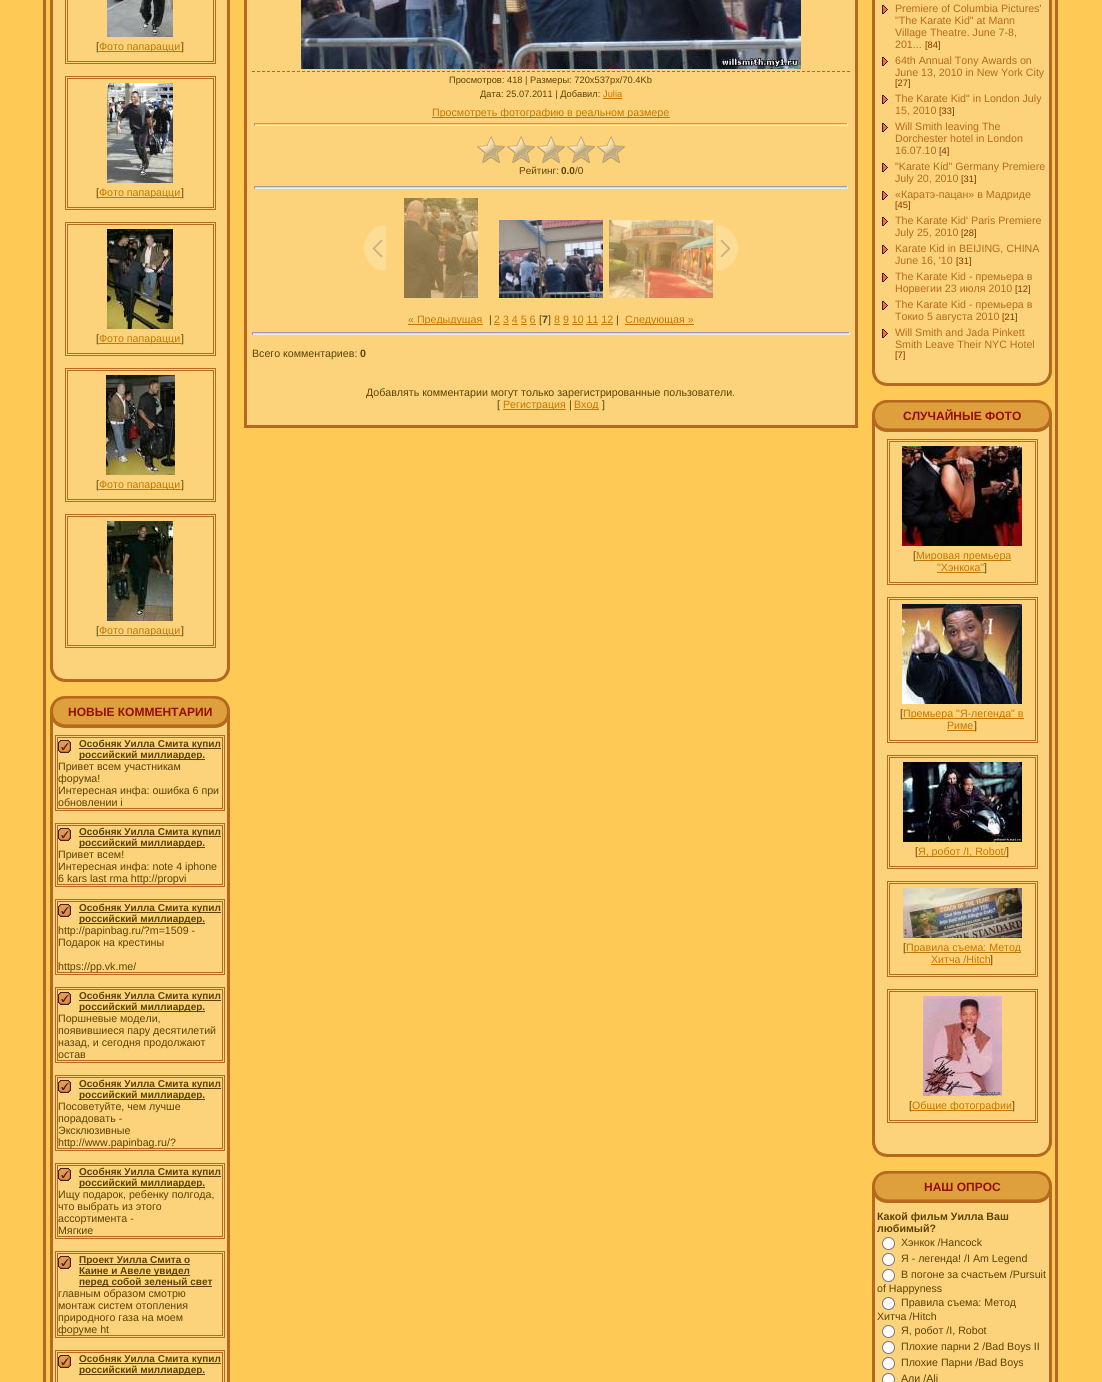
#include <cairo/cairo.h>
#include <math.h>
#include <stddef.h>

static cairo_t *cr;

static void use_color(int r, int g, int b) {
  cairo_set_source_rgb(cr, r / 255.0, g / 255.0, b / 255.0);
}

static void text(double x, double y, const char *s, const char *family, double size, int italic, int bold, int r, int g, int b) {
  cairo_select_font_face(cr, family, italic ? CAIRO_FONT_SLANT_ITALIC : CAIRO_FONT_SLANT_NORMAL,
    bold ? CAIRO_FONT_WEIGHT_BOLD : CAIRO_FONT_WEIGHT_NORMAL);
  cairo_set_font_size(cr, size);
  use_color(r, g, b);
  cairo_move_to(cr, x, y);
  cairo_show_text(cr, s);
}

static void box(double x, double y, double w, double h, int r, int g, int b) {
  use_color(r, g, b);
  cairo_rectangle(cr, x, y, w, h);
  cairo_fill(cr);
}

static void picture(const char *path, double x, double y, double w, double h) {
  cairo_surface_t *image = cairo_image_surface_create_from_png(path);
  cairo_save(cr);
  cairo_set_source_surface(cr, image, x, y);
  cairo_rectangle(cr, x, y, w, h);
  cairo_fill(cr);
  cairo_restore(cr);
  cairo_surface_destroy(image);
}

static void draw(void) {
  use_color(254, 201, 85);
  cairo_paint(cr);
  picture("img_01.png", 43, 0, 1015, 1382);
  picture("img_02.png", 50, 0, 180, 666);
  cairo_rectangle(cr, 65.5, -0.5, 150, 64);
  use_color(182, 106, 30);
  cairo_set_line_width(cr, 1);
  cairo_stroke(cr);
  cairo_rectangle(cr, 67.5, -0.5, 146, 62);
  cairo_stroke(cr);
  picture("img_03.png", 107, 0, 66, 37);
  cairo_rectangle(cr, 65.5, 76.5, 150, 133);
  cairo_stroke(cr);
  cairo_rectangle(cr, 67.5, 78.5, 146, 129);
  cairo_stroke(cr);
  picture("img_04.png", 107, 83, 66, 100);
  cairo_rectangle(cr, 65.5, 222.5, 150, 133);
  cairo_stroke(cr);
  cairo_rectangle(cr, 67.5, 224.5, 146, 129);
  cairo_stroke(cr);
  picture("img_05.png", 107, 229, 66, 100);
  cairo_rectangle(cr, 65.5, 368.5, 150, 133);
  cairo_stroke(cr);
  cairo_rectangle(cr, 67.5, 370.5, 146, 129);
  cairo_stroke(cr);
  picture("img_06.png", 106, 375, 69, 100);
  cairo_rectangle(cr, 65.5, 514.5, 150, 133);
  cairo_stroke(cr);
  cairo_rectangle(cr, 67.5, 516.5, 146, 129);
  cairo_stroke(cr);
  picture("img_07.png", 107, 521, 66, 100);
  picture("img_08.png", 50, 666, 180, 16);
  picture("img_09.png", 50, 696, 180, 33);
  picture("img_10.png", 50, 729, 180, 653);
  cairo_rectangle(cr, 55.5, 735.5, 169, 75);
  use_color(182, 105, 30);
  cairo_stroke(cr);
  cairo_rectangle(cr, 57.5, 737.5, 165, 71);
  cairo_stroke(cr);
  picture("img_11.png", 58, 740, 13, 13);
  box(79, 748, 142, 1, 92, 65, 5);
  box(79, 759, 126, 1, 92, 65, 5);
  cairo_rectangle(cr, 55.5, 823.5, 169, 63);
  use_color(182, 105, 30);
  cairo_stroke(cr);
  cairo_rectangle(cr, 57.5, 825.5, 165, 59);
  cairo_stroke(cr);
  picture("img_11.png", 58, 828, 13, 13);
  box(79, 836, 142, 1, 92, 65, 5);
  box(79, 847, 126, 1, 92, 65, 5);
  cairo_rectangle(cr, 55.5, 899.5, 169, 75);
  use_color(182, 105, 30);
  cairo_stroke(cr);
  cairo_rectangle(cr, 57.5, 901.5, 165, 71);
  cairo_stroke(cr);
  picture("img_11.png", 58, 904, 13, 13);
  box(79, 912, 142, 1, 92, 65, 5);
  box(79, 923, 126, 1, 92, 65, 5);
  cairo_rectangle(cr, 55.5, 987.5, 169, 75);
  use_color(182, 105, 30);
  cairo_stroke(cr);
  cairo_rectangle(cr, 57.5, 989.5, 165, 71);
  cairo_stroke(cr);
  picture("img_11.png", 58, 992, 13, 13);
  box(79, 1000, 142, 1, 92, 65, 5);
  box(79, 1011, 126, 1, 92, 65, 5);
  cairo_rectangle(cr, 55.5, 1075.5, 169, 75);
  use_color(182, 105, 30);
  cairo_stroke(cr);
  cairo_rectangle(cr, 57.5, 1077.5, 165, 71);
  cairo_stroke(cr);
  picture("img_11.png", 58, 1080, 13, 13);
  box(79, 1088, 142, 1, 92, 65, 5);
  box(79, 1099, 126, 1, 92, 65, 5);
  cairo_rectangle(cr, 55.5, 1163.5, 169, 75);
  use_color(182, 105, 30);
  cairo_stroke(cr);
  cairo_rectangle(cr, 57.5, 1165.5, 165, 71);
  cairo_stroke(cr);
  picture("img_11.png", 58, 1168, 13, 13);
  box(79, 1176, 142, 1, 92, 65, 5);
  box(79, 1187, 126, 1, 92, 65, 5);
  cairo_rectangle(cr, 55.5, 1251.5, 169, 86);
  use_color(182, 105, 30);
  cairo_stroke(cr);
  cairo_rectangle(cr, 57.5, 1253.5, 165, 82);
  cairo_stroke(cr);
  picture("img_11.png", 58, 1256, 13, 13);
  box(79, 1264, 111, 1, 92, 65, 5);
  box(79, 1275, 111, 1, 92, 65, 5);
  box(79, 1286, 133, 1, 92, 65, 5);
  cairo_rectangle(cr, 55.5, 1350.5, 169, 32);
  use_color(182, 105, 30);
  cairo_stroke(cr);
  cairo_rectangle(cr, 57.5, 1352.5, 165, 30);
  cairo_stroke(cr);
  picture("img_11.png", 58, 1355, 13, 13);
  box(79, 1363, 142, 1, 92, 65, 5);
  box(79, 1374, 126, 1, 92, 65, 5);
  use_color(252, 211, 123);
  cairo_rectangle(cr, 245.5, -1.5, 611, 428);
  cairo_fill_preserve(cr);
  use_color(182, 105, 30);
  cairo_set_line_width(cr, 3);
  cairo_stroke(cr);
  picture("img_12.png", 301, 0, 500, 69);
  cairo_new_path(cr);
  cairo_move_to(cr, 252, 71.5);
  cairo_line_to(cr, 850, 71.5);
  cairo_set_line_width(cr, 1);
  cairo_set_dash(cr, (double[]){3, 2}, 2, 0);
  cairo_stroke(cr);
  box(603, 98, 19, 1, 196, 119, 0);
  box(432, 117, 238, 1, 196, 119, 0);
  box(254, 123, 594, 1, 159, 159, 159);
  box(847, 123, 1, 3, 238, 238, 238);
  box(254, 125, 594, 1, 238, 238, 238);
  box(254, 123, 1, 3, 159, 159, 159);
  picture("img_13.png", 477, 136, 148, 28);
  box(254, 186, 594, 1, 159, 159, 159);
  box(847, 186, 1, 3, 238, 238, 238);
  box(254, 188, 594, 1, 238, 238, 238);
  box(254, 186, 1, 3, 159, 159, 159);
  picture("img_14.png", 364, 225, 22, 46);
  picture("img_15.png", 404, 198, 74, 100);
  picture("img_16.png", 499, 220, 104, 78);
  picture("img_17.png", 609, 220, 104, 78);
  picture("img_18.png", 716, 225, 22, 46);
  box(408, 324, 75, 1, 196, 119, 0);
  box(494, 324, 6, 1, 196, 119, 0);
  box(554, 324, 6, 1, 196, 119, 0);
  box(625, 324, 69, 1, 196, 119, 0);
  box(503, 324, 6, 1, 196, 119, 0);
  box(512, 324, 6, 1, 196, 119, 0);
  box(521, 324, 6, 1, 196, 119, 0);
  box(530, 324, 6, 1, 196, 119, 0);
  box(563, 324, 6, 1, 196, 119, 0);
  box(572, 324, 11, 1, 196, 119, 0);
  box(586, 324, 12, 1, 196, 119, 0);
  box(601, 324, 12, 1, 196, 119, 0);
  box(252, 332, 598, 1, 159, 159, 159);
  box(849, 332, 1, 3, 238, 238, 238);
  box(252, 334, 598, 1, 238, 238, 238);
  box(252, 332, 1, 3, 159, 159, 159);
  box(503, 409, 63, 1, 196, 119, 0);
  box(574, 409, 25, 1, 196, 119, 0);
  picture("img_19.png", 872, 0, 180, 370);
  picture("img_20.png", 882, 5, 6, 9);
  picture("img_20.png", 882, 57, 6, 9);
  picture("img_20.png", 882, 95, 6, 9);
  picture("img_20.png", 882, 123, 6, 9);
  picture("img_20.png", 882, 163, 6, 9);
  picture("img_20.png", 882, 191, 6, 9);
  picture("img_20.png", 882, 217, 6, 9);
  picture("img_20.png", 882, 245, 6, 9);
  picture("img_20.png", 882, 273, 6, 9);
  picture("img_20.png", 882, 301, 6, 9);
  picture("img_20.png", 882, 329, 6, 9);
  picture("img_08.png", 872, 370, 180, 16);
  picture("img_09.png", 872, 400, 180, 33);
  picture("img_21.png", 872, 433, 180, 708);
  cairo_rectangle(cr, 887.5, 439.5, 150, 145);
  use_color(182, 106, 30);
  cairo_set_dash(cr, NULL, 0, 0);
  cairo_stroke(cr);
  cairo_rectangle(cr, 889.5, 441.5, 146, 141);
  cairo_stroke(cr);
  picture("img_22.png", 902, 446, 120, 100);
  box(916, 560, 95, 1, 196, 119, 0);
  box(937, 572, 47, 1, 196, 119, 0);
  cairo_rectangle(cr, 887.5, 597.5, 150, 145);
  use_color(182, 106, 30);
  cairo_stroke(cr);
  cairo_rectangle(cr, 889.5, 599.5, 146, 141);
  cairo_stroke(cr);
  picture("img_23.png", 902, 604, 120, 100);
  box(947, 730, 27, 1, 196, 119, 0);
  cairo_rectangle(cr, 887.5, 755.5, 150, 113);
  use_color(182, 106, 30);
  cairo_stroke(cr);
  cairo_rectangle(cr, 889.5, 757.5, 146, 109);
  cairo_stroke(cr);
  picture("img_24.png", 903, 762, 119, 80);
  box(918, 856, 88, 1, 196, 119, 0);
  cairo_rectangle(cr, 887.5, 881.5, 150, 95);
  use_color(182, 106, 30);
  cairo_stroke(cr);
  cairo_rectangle(cr, 889.5, 883.5, 146, 91);
  cairo_stroke(cr);
  picture("img_25.png", 903, 888, 119, 50);
  box(906, 952, 115, 1, 196, 119, 0);
  box(931, 964, 59, 1, 196, 119, 0);
  cairo_rectangle(cr, 887.5, 989.5, 150, 133);
  use_color(182, 106, 30);
  cairo_stroke(cr);
  cairo_rectangle(cr, 889.5, 991.5, 146, 129);
  cairo_stroke(cr);
  picture("img_26.png", 923, 996, 79, 100);
  box(912, 1110, 100, 1, 196, 119, 0);
  picture("img_08.png", 872, 1141, 180, 16);
  picture("img_09.png", 872, 1171, 180, 33);
  picture("img_27.png", 872, 1204, 180, 178);
  use_color(255, 255, 255);
  cairo_arc(cr, 888.5, 1243.5, 6, 0, 2 * M_PI);
  cairo_fill_preserve(cr);
  use_color(118, 118, 118);
  cairo_stroke(cr);
  use_color(255, 255, 255);
  cairo_arc(cr, 888.5, 1259.5, 6, 0, 2 * M_PI);
  cairo_fill_preserve(cr);
  use_color(118, 118, 118);
  cairo_stroke(cr);
  use_color(255, 255, 255);
  cairo_arc(cr, 888.5, 1275.5, 6, 0, 2 * M_PI);
  cairo_fill_preserve(cr);
  use_color(118, 118, 118);
  cairo_stroke(cr);
  use_color(255, 255, 255);
  cairo_arc(cr, 888.5, 1303.5, 6, 0, 2 * M_PI);
  cairo_fill_preserve(cr);
  use_color(118, 118, 118);
  cairo_stroke(cr);
  use_color(255, 255, 255);
  cairo_arc(cr, 888.5, 1331.5, 6, 0, 2 * M_PI);
  cairo_fill_preserve(cr);
  use_color(118, 118, 118);
  cairo_stroke(cr);
  use_color(255, 255, 255);
  cairo_arc(cr, 888.5, 1347.5, 6, 0, 2 * M_PI);
  cairo_fill_preserve(cr);
  use_color(118, 118, 118);
  cairo_stroke(cr);
  use_color(255, 255, 255);
  cairo_arc(cr, 888.5, 1363.5, 6, 0, 2 * M_PI);
  cairo_fill_preserve(cr);
  use_color(118, 118, 118);
  cairo_stroke(cr);
  use_color(255, 255, 255);
  cairo_arc(cr, 888.5, 1379.5, 6, 0, 2 * M_PI);
  cairo_fill_preserve(cr);
  use_color(118, 118, 118);
  cairo_stroke(cr);
  text(96, 50, "[", "Liberation Sans", 10.65, 0, 0, 92, 65, 5);
  box(99, 51, 82, 1, 196, 119, 0);
  text(99, 50, "Фото папарацци", "Liberation Sans", 10.65, 0, 0, 196, 119, 0);
  text(181, 50, "]", "Liberation Sans", 10.65, 0, 0, 92, 65, 5);
  text(96, 196, "[", "Liberation Sans", 10.65, 0, 0, 92, 65, 5);
  box(99, 197, 82, 1, 196, 119, 0);
  text(99, 196, "Фото папарацци", "Liberation Sans", 10.65, 0, 0, 196, 119, 0);
  text(181, 196, "]", "Liberation Sans", 10.65, 0, 0, 92, 65, 5);
  text(96, 342, "[", "Liberation Sans", 10.65, 0, 0, 92, 65, 5);
  box(99, 343, 82, 1, 196, 119, 0);
  text(99, 342, "Фото папарацци", "Liberation Sans", 10.65, 0, 0, 196, 119, 0);
  text(181, 342, "]", "Liberation Sans", 10.65, 0, 0, 92, 65, 5);
  text(96, 488, "[", "Liberation Sans", 10.65, 0, 0, 92, 65, 5);
  box(99, 489, 82, 1, 196, 119, 0);
  text(99, 488, "Фото папарацци", "Liberation Sans", 10.65, 0, 0, 196, 119, 0);
  text(181, 488, "]", "Liberation Sans", 10.65, 0, 0, 92, 65, 5);
  text(96, 634, "[", "Liberation Sans", 10.65, 0, 0, 92, 65, 5);
  box(99, 635, 82, 1, 196, 119, 0);
  text(99, 634, "Фото папарацци", "Liberation Sans", 10.65, 0, 0, 196, 119, 0);
  text(181, 634, "]", "Liberation Sans", 10.65, 0, 0, 92, 65, 5);
  text(68, 716, "НОВЫЕ КОММЕНТАРИИ", "Liberation Sans", 12, 0, 1, 149, 14, 0);
  text(79, 747, "Особняк Уилла Смита купил", "Liberation Sans", 10, 0, 1, 92, 65, 5);
  text(79, 758, "российский миллиардер.", "Liberation Sans", 10, 0, 1, 92, 65, 5);
  text(58, 770, "Привет всем участникам", "Liberation Sans", 10.65, 0, 0, 92, 65, 5);
  text(58, 782, "форума!", "Liberation Sans", 10.65, 0, 0, 92, 65, 5);
  text(58, 794, "Интересная инфа: ошибка 6 при", "Liberation Sans", 10.65, 0, 0, 92, 65, 5);
  text(58, 806, "обновлении i", "Liberation Sans", 10.65, 0, 0, 92, 65, 5);
  text(79, 835, "Особняк Уилла Смита купил", "Liberation Sans", 10, 0, 1, 92, 65, 5);
  text(79, 846, "российский миллиардер.", "Liberation Sans", 10, 0, 1, 92, 65, 5);
  text(58, 858, "Привет всем!", "Liberation Sans", 10.65, 0, 0, 92, 65, 5);
  text(58, 870, "Интересная инфа: note 4 iphone", "Liberation Sans", 10.65, 0, 0, 92, 65, 5);
  text(58, 882, "6 kars last rma http://propvi", "Liberation Sans", 10.65, 0, 0, 92, 65, 5);
  text(79, 911, "Особняк Уилла Смита купил", "Liberation Sans", 10, 0, 1, 92, 65, 5);
  text(79, 922, "российский миллиардер.", "Liberation Sans", 10, 0, 1, 92, 65, 5);
  text(58, 934, "http://papinbag.ru/?m=1509 -", "Liberation Sans", 10.65, 0, 0, 92, 65, 5);
  text(58, 946, "Подарок на крестины", "Liberation Sans", 10.65, 0, 0, 92, 65, 5);
  text(58, 970, "https://pp.vk.me/", "Liberation Sans", 10.65, 0, 0, 92, 65, 5);
  text(79, 999, "Особняк Уилла Смита купил", "Liberation Sans", 10, 0, 1, 92, 65, 5);
  text(79, 1010, "российский миллиардер.", "Liberation Sans", 10, 0, 1, 92, 65, 5);
  text(58, 1022, "Поршневые модели,", "Liberation Sans", 10.65, 0, 0, 92, 65, 5);
  text(58, 1034, "появившиеся пару десятилетий", "Liberation Sans", 10.65, 0, 0, 92, 65, 5);
  text(58, 1046, "назад, и сегодня продолжают", "Liberation Sans", 10.65, 0, 0, 92, 65, 5);
  text(58, 1058, "остав", "Liberation Sans", 10.65, 0, 0, 92, 65, 5);
  text(79, 1087, "Особняк Уилла Смита купил", "Liberation Sans", 10, 0, 1, 92, 65, 5);
  text(79, 1098, "российский миллиардер.", "Liberation Sans", 10, 0, 1, 92, 65, 5);
  text(58, 1110, "Посоветуйте, чем лучше", "Liberation Sans", 10.65, 0, 0, 92, 65, 5);
  text(58, 1122, "порадовать -", "Liberation Sans", 10.65, 0, 0, 92, 65, 5);
  text(58, 1134, "Эксклюзивные", "Liberation Sans", 10.65, 0, 0, 92, 65, 5);
  text(58, 1146, "http://www.papinbag.ru/?", "Liberation Sans", 10.65, 0, 0, 92, 65, 5);
  text(79, 1175, "Особняк Уилла Смита купил", "Liberation Sans", 10, 0, 1, 92, 65, 5);
  text(79, 1186, "российский миллиардер.", "Liberation Sans", 10, 0, 1, 92, 65, 5);
  text(58, 1198, "Ищу подарок, ребенку полгода,", "Liberation Sans", 10.65, 0, 0, 92, 65, 5);
  text(58, 1210, "что выбрать из этого", "Liberation Sans", 10.65, 0, 0, 92, 65, 5);
  text(58, 1222, "ассортимента -", "Liberation Sans", 10.65, 0, 0, 92, 65, 5);
  text(58, 1234, "Мягкие", "Liberation Sans", 10.65, 0, 0, 92, 65, 5);
  text(79, 1263, "Проект Уилла Смита о", "Liberation Sans", 10, 0, 1, 92, 65, 5);
  text(79, 1274, "Каине и Авеле увидел", "Liberation Sans", 10, 0, 1, 92, 65, 5);
  text(79, 1285, "перед собой зеленый свет", "Liberation Sans", 10, 0, 1, 92, 65, 5);
  text(58, 1297, "главным образом смотрю", "Liberation Sans", 10.65, 0, 0, 92, 65, 5);
  text(58, 1309, "монтаж систем отопления", "Liberation Sans", 10.65, 0, 0, 92, 65, 5);
  text(58, 1321, "природного газа на моем", "Liberation Sans", 10.65, 0, 0, 92, 65, 5);
  text(58, 1333, "форуме ht", "Liberation Sans", 10.65, 0, 0, 92, 65, 5);
  text(79, 1362, "Особняк Уилла Смита купил", "Liberation Sans", 10, 0, 1, 92, 65, 5);
  text(79, 1373, "российский миллиардер.", "Liberation Sans", 10, 0, 1, 92, 65, 5);
  text(449, 83, "Просмотров: 418 | Размеры: 720x537px/70.4Kb", "Liberation Sans", 9.3, 0, 0, 92, 65, 5);
  text(480, 97, "Дата: 25.07.2011 | Добавил:", "Liberation Sans", 9.3, 0, 0, 92, 65, 5);
  text(603, 97, "Julia", "Liberation Sans", 9.3, 0, 0, 196, 119, 0);
  text(432, 116, "Просмотреть фотографию в реальном размере", "Liberation Sans", 10.65, 0, 0, 196, 119, 0);
  text(519, 174, "Рейтинг:", "Liberation Sans", 10, 0, 0, 92, 65, 5);
  text(561, 174, "0.0", "Liberation Sans", 10, 0, 1, 92, 65, 5);
  text(575, 174, "/0", "Liberation Sans", 10, 0, 0, 92, 65, 5);
  text(408, 323, "« Предыдущая", "Liberation Sans", 10.65, 0, 0, 196, 119, 0);
  text(489, 323, "|", "Liberation Sans", 10.65, 0, 0, 92, 65, 5);
  text(494, 323, "2 3 4 5 6", "Liberation Sans", 10.65, 0, 0, 196, 119, 0);
  text(539, 323, "[", "Liberation Sans", 10.65, 0, 0, 92, 65, 5);
  text(542, 323, "7", "Liberation Sans", 10.65, 0, 1, 92, 65, 5);
  text(548, 323, "]", "Liberation Sans", 10.65, 0, 0, 92, 65, 5);
  text(554, 323, "8 9 10 11 12", "Liberation Sans", 10.65, 0, 0, 196, 119, 0);
  text(616, 323, "|", "Liberation Sans", 10.65, 0, 0, 92, 65, 5);
  text(625, 323, "Следующая »", "Liberation Sans", 10.65, 0, 0, 196, 119, 0);
  text(252, 357, "Всего комментариев:", "Liberation Sans", 10.65, 0, 0, 92, 65, 5);
  text(360, 357, "0", "Liberation Sans", 10.65, 0, 1, 92, 65, 5);
  text(366, 396, "Добавлять комментарии могут только зарегистрированные пользователи.", "Liberation Sans", 10.65, 0, 0, 92, 65, 5);
  text(497, 408, "[", "Liberation Sans", 10.65, 0, 0, 92, 65, 5);
  text(503, 408, "Регистрация", "Liberation Sans", 10.65, 0, 0, 196, 119, 0);
  text(569, 408, "|", "Liberation Sans", 10.65, 0, 0, 92, 65, 5);
  text(574, 408, "Вход", "Liberation Sans", 10.65, 0, 0, 196, 119, 0);
  text(602, 408, "]", "Liberation Sans", 10.65, 0, 0, 92, 65, 5);
  text(895, 12, "Premiere of Columbia Pictures'", "Liberation Sans", 10.65, 0, 0, 182, 106, 30);
  text(895, 24, "\"The Karate Kid\" at Mann", "Liberation Sans", 10.65, 0, 0, 182, 106, 30);
  text(895, 36, "Village Theatre. June 7-8,", "Liberation Sans", 10.65, 0, 0, 182, 106, 30);
  text(895, 48, "201...", "Liberation Sans", 10.65, 0, 0, 182, 106, 30);
  text(925, 48, "[84]", "Liberation Sans", 9.3, 0, 0, 127, 51, 0);
  text(895, 64, "64th Annual Tony Awards on", "Liberation Sans", 10.65, 0, 0, 182, 106, 30);
  text(895, 76, "June 13, 2010 in New York City", "Liberation Sans", 10.65, 0, 0, 182, 106, 30);
  text(895, 86, "[27]", "Liberation Sans", 9.3, 0, 0, 127, 51, 0);
  text(895, 102, "The Karate Kid\" in London July", "Liberation Sans", 10.65, 0, 0, 182, 106, 30);
  text(895, 114, "15, 2010", "Liberation Sans", 10.65, 0, 0, 182, 106, 30);
  text(939, 114, "[33]", "Liberation Sans", 9.3, 0, 0, 127, 51, 0);
  text(895, 130, "Will Smith leaving The", "Liberation Sans", 10.65, 0, 0, 182, 106, 30);
  text(895, 142, "Dorchester hotel in London", "Liberation Sans", 10.65, 0, 0, 182, 106, 30);
  text(895, 154, "16.07.10", "Liberation Sans", 10.65, 0, 0, 182, 106, 30);
  text(939, 154, "[4]", "Liberation Sans", 9.3, 0, 0, 127, 51, 0);
  text(895, 170, "\"Karate Kid\" Germany Premiere", "Liberation Sans", 10.65, 0, 0, 182, 106, 30);
  text(895, 182, "July 20, 2010", "Liberation Sans", 10.65, 0, 0, 182, 106, 30);
  text(961, 182, "[31]", "Liberation Sans", 9.3, 0, 0, 127, 51, 0);
  text(895, 198, "«Каратэ-пацан» в Мадриде", "Liberation Sans", 10.65, 0, 0, 182, 106, 30);
  text(895, 208, "[45]", "Liberation Sans", 9.3, 0, 0, 127, 51, 0);
  text(895, 224, "The Karate Kid' Paris Premiere", "Liberation Sans", 10.65, 0, 0, 182, 106, 30);
  text(895, 236, "July 25, 2010", "Liberation Sans", 10.65, 0, 0, 182, 106, 30);
  text(961, 236, "[28]", "Liberation Sans", 9.3, 0, 0, 127, 51, 0);
  text(895, 252, "Karate Kid in BEIJING, CHINA", "Liberation Sans", 10.65, 0, 0, 182, 106, 30);
  text(895, 264, "June 16, '10", "Liberation Sans", 10.65, 0, 0, 182, 106, 30);
  text(956, 264, "[31]", "Liberation Sans", 9.3, 0, 0, 127, 51, 0);
  text(895, 280, "The Karate Kid - премьера в", "Liberation Sans", 10.65, 0, 0, 182, 106, 30);
  text(895, 292, "Норвегии 23 июля 2010", "Liberation Sans", 10.65, 0, 0, 182, 106, 30);
  text(1015, 292, "[12]", "Liberation Sans", 9.3, 0, 0, 127, 51, 0);
  text(895, 308, "The Karate Kid - премьера в", "Liberation Sans", 10.65, 0, 0, 182, 106, 30);
  text(895, 320, "Токио 5 августа 2010", "Liberation Sans", 10.65, 0, 0, 182, 106, 30);
  text(1002, 320, "[21]", "Liberation Sans", 9.3, 0, 0, 127, 51, 0);
  text(895, 336, "Will Smith and Jada Pinkett", "Liberation Sans", 10.65, 0, 0, 182, 106, 30);
  text(895, 348, "Smith Leave Their NYC Hotel", "Liberation Sans", 10.65, 0, 0, 182, 106, 30);
  text(895, 358, "[7]", "Liberation Sans", 9.3, 0, 0, 127, 51, 0);
  text(903, 420, "СЛУЧАЙНЫЕ ФОТО", "Liberation Sans", 12, 0, 1, 149, 14, 0);
  text(913, 559, "[", "Liberation Sans", 10.65, 0, 0, 92, 65, 5);
  text(916, 559, "Мировая премьера", "Liberation Sans", 10.65, 0, 0, 196, 119, 0);
  text(937, 571, "\"Хэнкока\"", "Liberation Sans", 10.65, 0, 0, 196, 119, 0);
  text(984, 571, "]", "Liberation Sans", 10.65, 0, 0, 92, 65, 5);
  text(900, 717, "[", "Liberation Sans", 10.65, 0, 0, 92, 65, 5);
  box(903, 718, 121, 1, 196, 119, 0);
  text(903, 717, "Премьера \"Я-легенда\" в", "Liberation Sans", 10.65, 0, 0, 196, 119, 0);
  text(947, 729, "Риме", "Liberation Sans", 10.65, 0, 0, 196, 119, 0);
  text(974, 729, "]", "Liberation Sans", 10.65, 0, 0, 92, 65, 5);
  text(915, 855, "[", "Liberation Sans", 10.65, 0, 0, 92, 65, 5);
  text(918, 855, "Я, робот /I, Robot/", "Liberation Sans", 10.65, 0, 0, 196, 119, 0);
  text(1006, 855, "]", "Liberation Sans", 10.65, 0, 0, 92, 65, 5);
  text(903, 951, "[", "Liberation Sans", 10.65, 0, 0, 92, 65, 5);
  text(906, 951, "Правила съема: Метод", "Liberation Sans", 10.65, 0, 0, 196, 119, 0);
  text(931, 963, "Хитча /Hitch", "Liberation Sans", 10.65, 0, 0, 196, 119, 0);
  text(990, 963, "]", "Liberation Sans", 10.65, 0, 0, 92, 65, 5);
  text(909, 1109, "[", "Liberation Sans", 10.65, 0, 0, 92, 65, 5);
  text(912, 1109, "Общие фотографии", "Liberation Sans", 10.65, 0, 0, 196, 119, 0);
  text(1012, 1109, "]", "Liberation Sans", 10.65, 0, 0, 92, 65, 5);
  text(924, 1191, "НАШ ОПРОС", "Liberation Sans", 12, 0, 1, 149, 14, 0);
  text(877, 1220, "Какой фильм Уилла Ваш", "Liberation Sans", 10.65, 0, 1, 92, 65, 5);
  text(877, 1232, "любимый?", "Liberation Sans", 10.65, 0, 1, 92, 65, 5);
  text(901, 1246, "Хэнкок /Hancock", "Liberation Sans", 10.65, 0, 0, 92, 65, 5);
  text(901, 1262, "Я - легенда! /I Am Legend", "Liberation Sans", 10.65, 0, 0, 92, 65, 5);
  text(901, 1278, "В погоне за счастьем /Pursuit", "Liberation Sans", 10.65, 0, 0, 92, 65, 5);
  text(877, 1292, "of Happyness", "Liberation Sans", 10.65, 0, 0, 92, 65, 5);
  text(901, 1306, "Правила съема: Метод", "Liberation Sans", 10.65, 0, 0, 92, 65, 5);
  text(877, 1320, "Хитча /Hitch", "Liberation Sans", 10.65, 0, 0, 92, 65, 5);
  text(901, 1334, "Я, робот /I, Robot", "Liberation Sans", 10.65, 0, 0, 92, 65, 5);
  text(901, 1350, "Плохие парни 2 /Bad Boys II", "Liberation Sans", 10.65, 0, 0, 92, 65, 5);
  text(901, 1366, "Плохие Парни /Bad Boys", "Liberation Sans", 10.65, 0, 0, 92, 65, 5);
  text(901, 1382, "Али /Ali", "Liberation Sans", 10.65, 0, 0, 92, 65, 5);
}

int main(void) {
  cairo_surface_t *surface = cairo_image_surface_create(CAIRO_FORMAT_RGB24, 1102, 1382);
  cr = cairo_create(surface);
  cairo_font_options_t *options = cairo_font_options_create();
  cairo_font_options_set_hint_metrics(options, CAIRO_HINT_METRICS_OFF);
  cairo_font_options_set_hint_style(options, CAIRO_HINT_STYLE_NONE);
  cairo_set_font_options(cr, options);
  cairo_set_miter_limit(cr, 4);
  draw();
  cairo_surface_write_to_png(surface, "out.png");
  cairo_font_options_destroy(options);
  cairo_destroy(cr);
  cairo_surface_destroy(surface);
  return 0;
}
